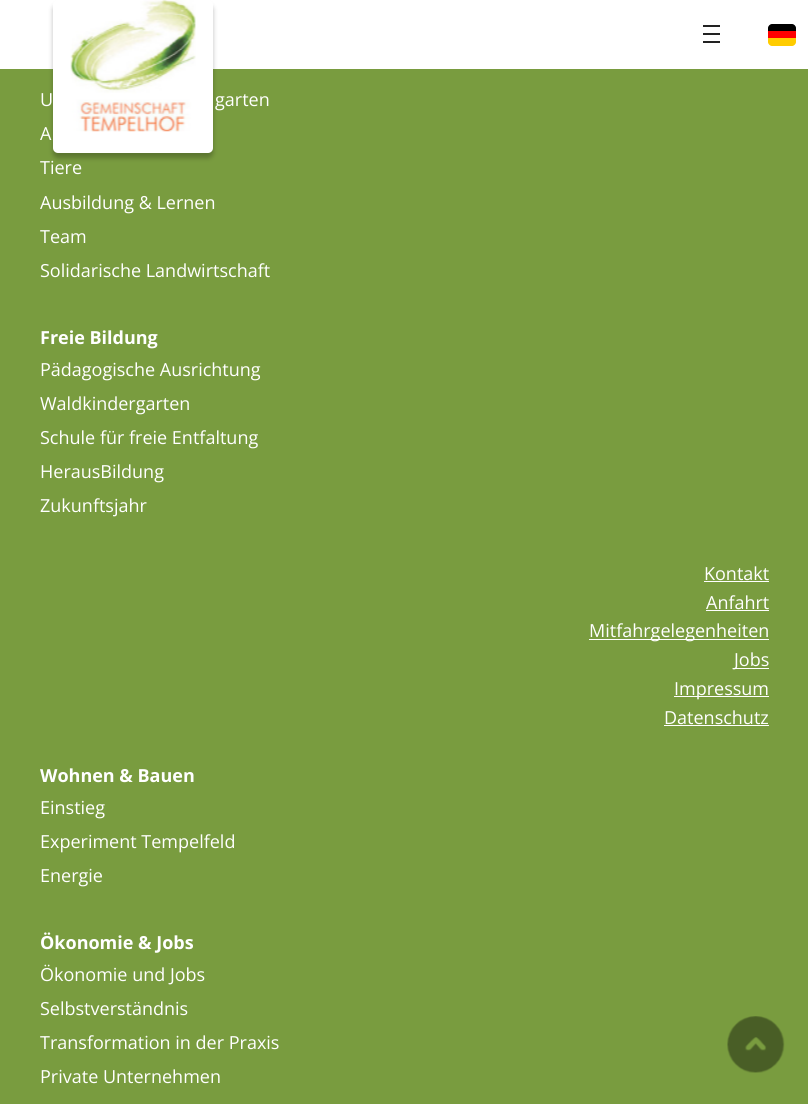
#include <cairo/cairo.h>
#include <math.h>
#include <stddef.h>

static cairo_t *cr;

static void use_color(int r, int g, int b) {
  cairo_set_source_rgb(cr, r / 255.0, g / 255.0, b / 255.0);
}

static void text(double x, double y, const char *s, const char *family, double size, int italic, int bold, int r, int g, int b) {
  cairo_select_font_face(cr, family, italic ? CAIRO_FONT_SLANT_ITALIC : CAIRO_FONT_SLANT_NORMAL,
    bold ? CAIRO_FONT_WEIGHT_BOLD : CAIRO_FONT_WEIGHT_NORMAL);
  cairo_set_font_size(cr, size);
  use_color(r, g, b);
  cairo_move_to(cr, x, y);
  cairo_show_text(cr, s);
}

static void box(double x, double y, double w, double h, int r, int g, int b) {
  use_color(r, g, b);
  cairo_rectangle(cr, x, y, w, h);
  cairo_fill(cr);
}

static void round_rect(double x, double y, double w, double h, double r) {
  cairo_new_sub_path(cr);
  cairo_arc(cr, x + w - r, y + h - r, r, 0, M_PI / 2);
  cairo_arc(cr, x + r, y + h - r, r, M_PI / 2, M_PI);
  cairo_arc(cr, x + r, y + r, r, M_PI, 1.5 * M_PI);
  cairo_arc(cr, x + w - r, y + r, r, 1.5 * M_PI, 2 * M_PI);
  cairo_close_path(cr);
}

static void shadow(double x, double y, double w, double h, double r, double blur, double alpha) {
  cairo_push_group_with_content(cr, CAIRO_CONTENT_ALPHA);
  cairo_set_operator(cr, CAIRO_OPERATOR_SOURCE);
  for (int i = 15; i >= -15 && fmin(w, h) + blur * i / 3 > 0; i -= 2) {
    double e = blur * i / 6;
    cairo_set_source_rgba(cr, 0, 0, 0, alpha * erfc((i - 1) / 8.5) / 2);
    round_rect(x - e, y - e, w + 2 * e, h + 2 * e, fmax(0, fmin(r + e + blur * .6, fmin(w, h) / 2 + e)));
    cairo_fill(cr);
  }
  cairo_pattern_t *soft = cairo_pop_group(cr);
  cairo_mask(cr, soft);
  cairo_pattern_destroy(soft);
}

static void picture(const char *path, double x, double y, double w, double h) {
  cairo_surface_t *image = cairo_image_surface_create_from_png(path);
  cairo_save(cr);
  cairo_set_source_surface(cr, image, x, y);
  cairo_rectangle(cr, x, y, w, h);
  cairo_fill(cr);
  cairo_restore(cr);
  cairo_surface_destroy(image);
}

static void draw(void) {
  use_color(121, 156, 63);
  cairo_paint(cr);
  box(0, 0, 808, 69, 255, 255, 255);
  use_color(0, 0, 0);
  shadow(53, 5, 160, 153, 5, 2.5, 0.25);
  use_color(255, 255, 255);
  round_rect(53, 0, 160, 153, 5);
  cairo_fill(cr);
  picture("img_01.png", 70, 0, 126, 132);
  box(703, 25, 17, 2, 34, 34, 34);
  box(703, 33, 17, 2, 34, 34, 34);
  box(703, 41, 17, 2, 34, 34, 34);
  use_color(255, 204, 0);
  cairo_new_path(cr);
  cairo_move_to(cr, 768, 38);
  cairo_line_to(cr, 796, 38);
  cairo_line_to(cr, 796, 42);
  cairo_curve_to(cr, 796, 44, 794, 46, 792, 46);
  cairo_line_to(cr, 772, 46);
  cairo_curve_to(cr, 770, 46, 768, 44, 768, 42);
  cairo_close_path(cr);
  cairo_fill(cr);
  use_color(0, 0, 0);
  cairo_new_path(cr);
  cairo_move_to(cr, 772, 24);
  cairo_line_to(cr, 792, 24);
  cairo_curve_to(cr, 794, 24, 796, 26, 796, 28);
  cairo_line_to(cr, 796, 31);
  cairo_line_to(cr, 768, 31);
  cairo_line_to(cr, 768, 28);
  cairo_curve_to(cr, 768, 26, 770, 24, 772, 24);
  cairo_close_path(cr);
  cairo_fill(cr);
  box(768, 31, 28, 7, 255, 0, 0);
  box(704, 581, 65, 1, 255, 255, 255);
  box(706, 610, 63, 1, 255, 255, 255);
  box(589, 639, 180, 1, 255, 255, 255);
  box(734, 668, 35, 1, 255, 255, 255);
  box(674, 696, 95, 1, 255, 255, 255);
  box(664, 725, 105, 1, 255, 255, 255);
  picture("img_02.png", 727, 1016, 58, 57);
  text(40, 106, "U", "Open Sans", 18, 0, 0, 255, 255, 255);
  text(215, 106, "garten", "Open Sans", 18, 0, 0, 255, 255, 255);
  text(40, 140, "A", "Open Sans", 18, 0, 0, 255, 255, 255);
  text(40, 174, "Tiere", "Open Sans", 18, 0, 0, 255, 255, 255);
  text(40, 209, "Ausbildung & Lernen", "Open Sans", 18, 0, 0, 255, 255, 255);
  text(40, 243, "Team", "Open Sans", 18, 0, 0, 255, 255, 255);
  text(40, 277, "Solidarische Landwirtschaft", "Open Sans", 18, 0, 0, 255, 255, 255);
  text(40, 344, "Freie Bildung", "Open Sans", 18, 0, 1, 255, 255, 255);
  text(40, 376, "Pädagogische Ausrichtung", "Open Sans", 18, 0, 0, 255, 255, 255);
  text(40, 410, "Waldkindergarten", "Open Sans", 18, 0, 0, 255, 255, 255);
  text(40, 444, "Schule für freie Entfaltung", "Open Sans", 18, 0, 0, 255, 255, 255);
  text(40, 478, "HerausBildung", "Open Sans", 18, 0, 0, 255, 255, 255);
  text(40, 512, "Zukunftsjahr", "Open Sans", 18, 0, 0, 255, 255, 255);
  text(704, 580, "Kontakt", "Open Sans", 18, 0, 0, 255, 255, 255);
  text(706, 609, "Anfahrt", "Open Sans", 18, 0, 0, 255, 255, 255);
  text(589, 637, "Mitfahrgelegenheiten", "Open Sans", 18, 0, 0, 255, 255, 255);
  text(734, 666, "Jobs", "Open Sans", 18, 0, 0, 255, 255, 255);
  text(674, 695, "Impressum", "Open Sans", 18, 0, 0, 255, 255, 255);
  text(664, 724, "Datenschutz", "Open Sans", 18, 0, 0, 255, 255, 255);
  text(40, 782, "Wohnen & Bauen", "Open Sans", 18, 0, 1, 255, 255, 255);
  text(40, 814, "Einstieg", "Open Sans", 18, 0, 0, 255, 255, 255);
  text(40, 848, "Experiment Tempelfeld", "Open Sans", 18, 0, 0, 255, 255, 255);
  text(40, 882, "Energie", "Open Sans", 18, 0, 0, 255, 255, 255);
  text(40, 949, "Ökonomie & Jobs", "Open Sans", 18, 0, 1, 255, 255, 255);
  text(40, 981, "Ökonomie und Jobs", "Open Sans", 18, 0, 0, 255, 255, 255);
  text(40, 1015, "Selbstverständnis", "Open Sans", 18, 0, 0, 255, 255, 255);
  text(40, 1049, "Transformation in der Praxis", "Open Sans", 18, 0, 0, 255, 255, 255);
  text(40, 1083, "Private Unternehmen", "Open Sans", 18, 0, 0, 255, 255, 255);
}

int main(void) {
  cairo_surface_t *surface = cairo_image_surface_create(CAIRO_FORMAT_RGB24, 808, 1104);
  cr = cairo_create(surface);
  cairo_font_options_t *options = cairo_font_options_create();
  cairo_font_options_set_hint_metrics(options, CAIRO_HINT_METRICS_OFF);
  cairo_font_options_set_hint_style(options, CAIRO_HINT_STYLE_NONE);
  cairo_set_font_options(cr, options);
  cairo_set_miter_limit(cr, 4);
  draw();
  cairo_surface_write_to_png(surface, "out.png");
  cairo_font_options_destroy(options);
  cairo_destroy(cr);
  cairo_surface_destroy(surface);
  return 0;
}
